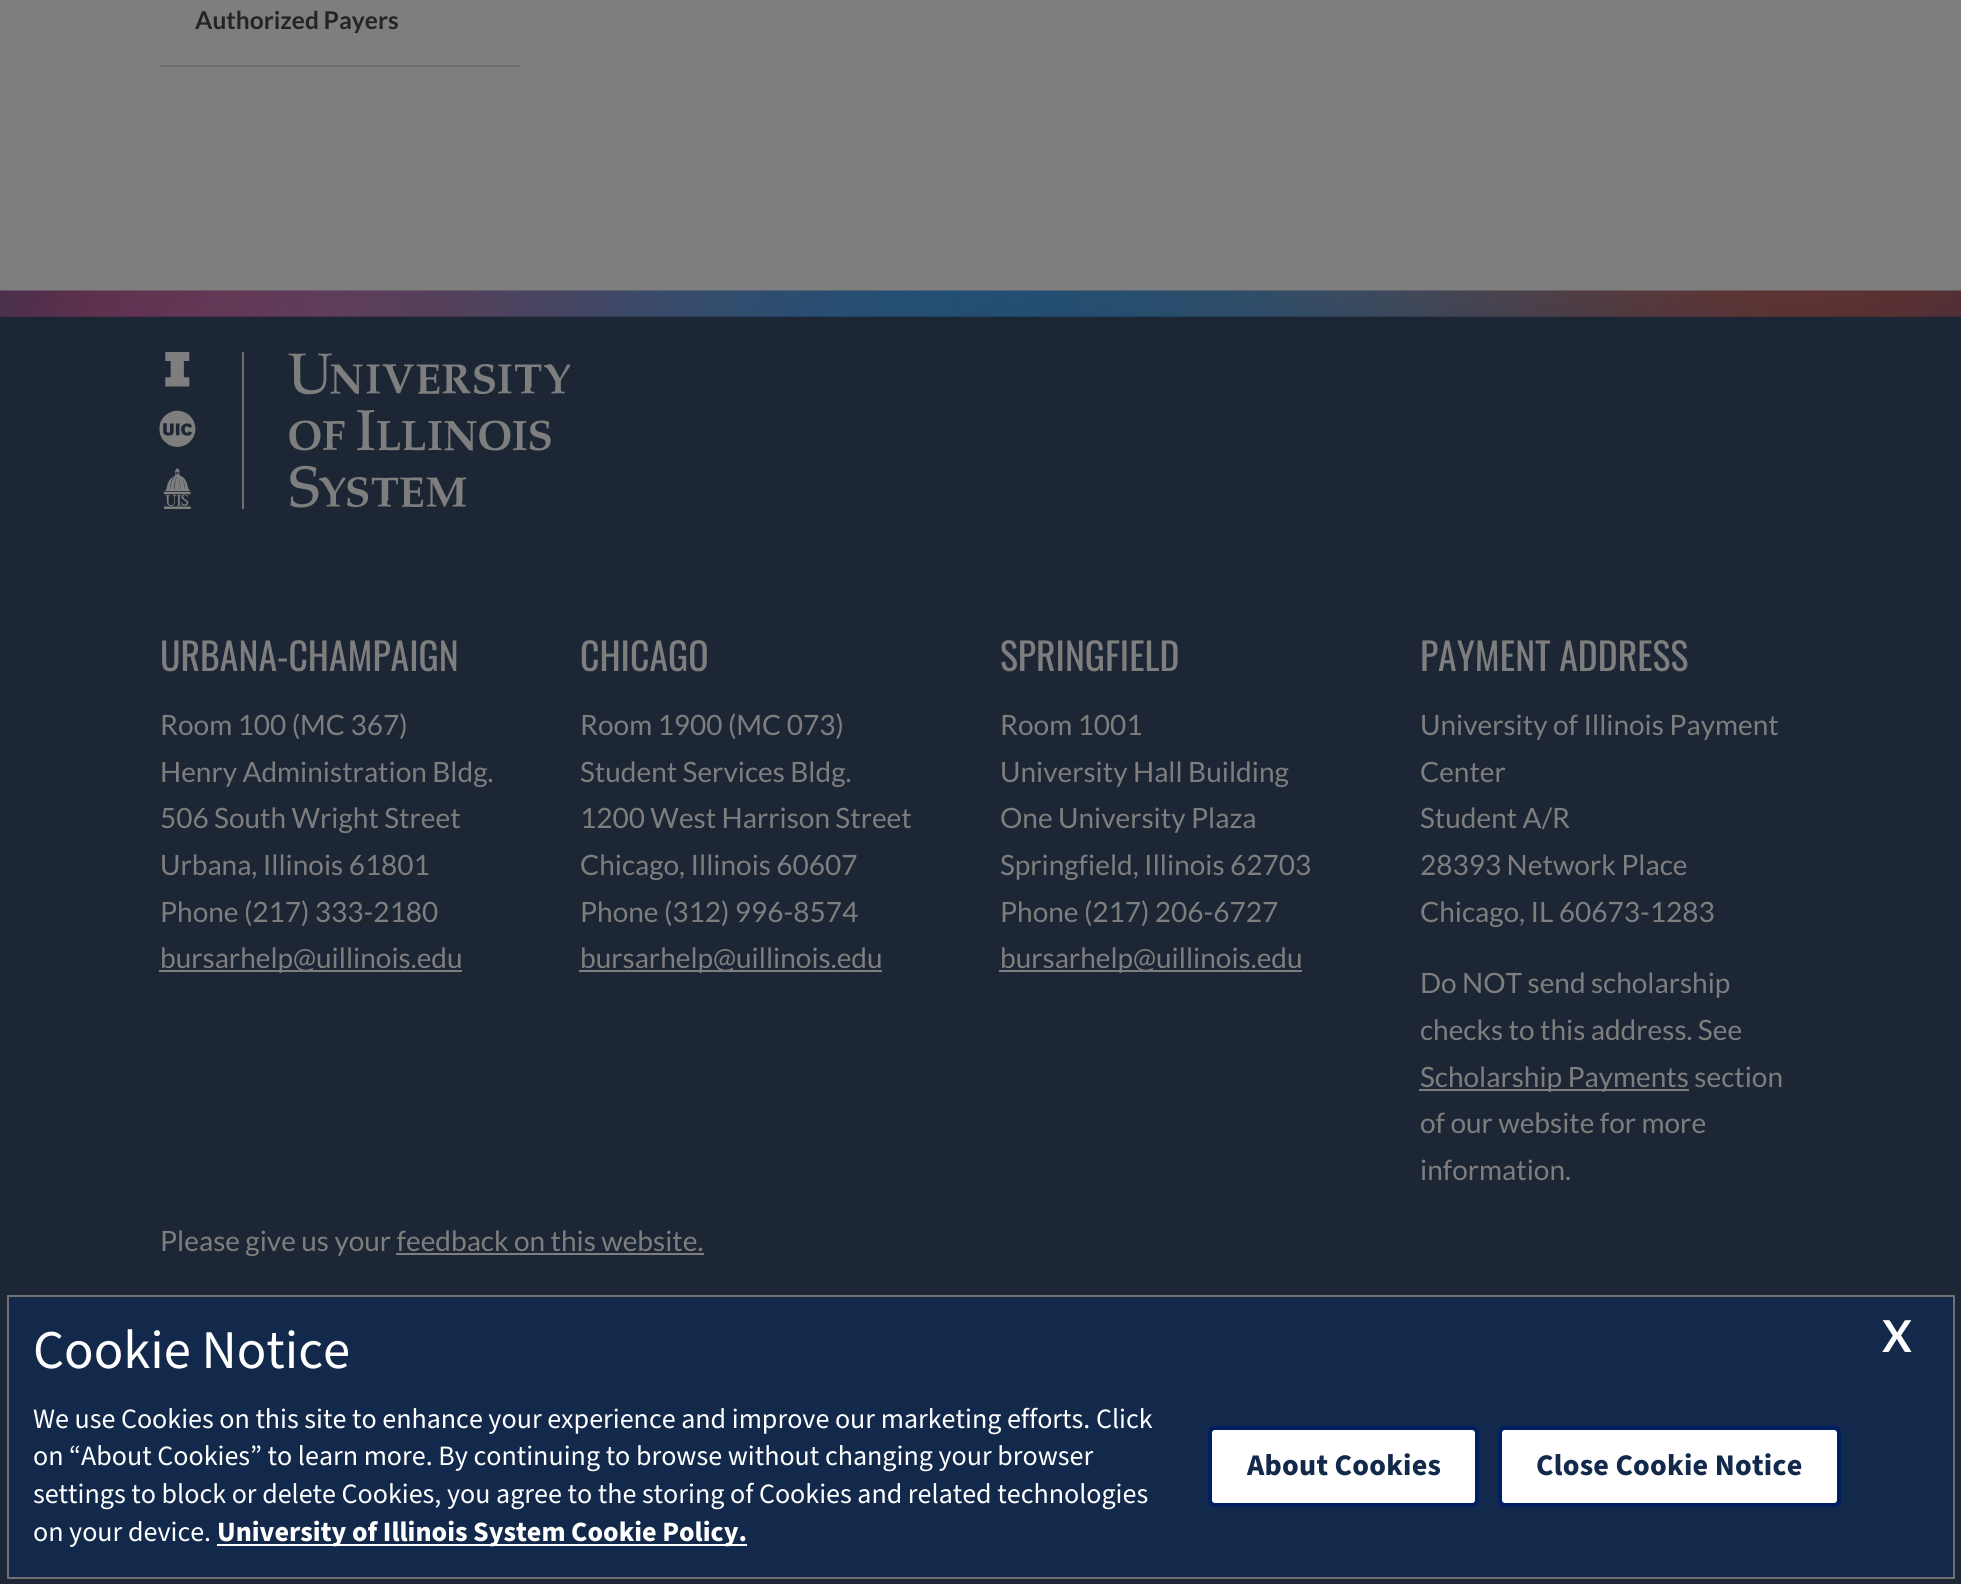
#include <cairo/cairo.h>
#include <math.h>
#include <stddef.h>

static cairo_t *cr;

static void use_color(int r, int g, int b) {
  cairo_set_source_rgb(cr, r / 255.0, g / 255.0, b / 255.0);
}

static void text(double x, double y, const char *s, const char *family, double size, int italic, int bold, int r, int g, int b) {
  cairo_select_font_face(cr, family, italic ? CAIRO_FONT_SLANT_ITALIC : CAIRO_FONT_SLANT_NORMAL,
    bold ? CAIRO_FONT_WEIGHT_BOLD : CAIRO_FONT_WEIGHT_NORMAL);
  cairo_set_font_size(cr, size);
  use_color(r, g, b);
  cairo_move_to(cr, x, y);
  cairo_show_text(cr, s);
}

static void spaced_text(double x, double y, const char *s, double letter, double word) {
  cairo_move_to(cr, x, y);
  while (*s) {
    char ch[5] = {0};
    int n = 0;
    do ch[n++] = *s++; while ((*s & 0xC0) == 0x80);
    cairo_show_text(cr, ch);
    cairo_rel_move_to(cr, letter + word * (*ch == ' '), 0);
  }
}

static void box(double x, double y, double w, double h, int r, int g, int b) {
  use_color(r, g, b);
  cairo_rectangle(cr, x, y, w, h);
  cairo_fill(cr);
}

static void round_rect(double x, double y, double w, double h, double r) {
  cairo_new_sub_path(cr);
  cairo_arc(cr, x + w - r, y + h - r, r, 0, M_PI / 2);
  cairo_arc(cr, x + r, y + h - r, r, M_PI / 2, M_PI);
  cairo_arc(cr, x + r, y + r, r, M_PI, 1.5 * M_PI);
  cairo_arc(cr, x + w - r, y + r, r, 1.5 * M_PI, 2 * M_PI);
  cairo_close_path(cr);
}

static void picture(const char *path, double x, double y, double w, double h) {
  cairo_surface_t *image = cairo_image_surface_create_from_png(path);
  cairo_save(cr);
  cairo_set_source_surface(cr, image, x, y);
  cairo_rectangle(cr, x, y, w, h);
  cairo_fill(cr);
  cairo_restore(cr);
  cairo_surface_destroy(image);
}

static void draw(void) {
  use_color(126, 126, 126);
  cairo_paint(cr);
  box(159, 65, 361, 2, 110, 110, 110);
  box(0, 316, 1961, 1268, 29, 38, 52);
  picture("img_01.png", 0, 290, 1961, 27);
  picture("img_02.png", 159, 352, 412, 157);
  box(159, 970, 303, 2, 126, 126, 126);
  box(579, 970, 303, 2, 126, 126, 126);
  box(999, 970, 303, 2, 126, 126, 126);
  box(1419, 1089, 270, 2, 126, 126, 126);
  box(396, 1253, 308, 2, 126, 126, 126);
  use_color(19, 41, 75);
  cairo_rectangle(cr, 8, 1296, 1946, 282);
  cairo_fill_preserve(cr);
  use_color(112, 112, 112);
  cairo_stroke(cr);
  box(217, 1544, 530, 2, 255, 255, 255);
  round_rect(1210, 1428, 267, 77, 5);
  cairo_fill_preserve(cr);
  use_color(0, 30, 98);
  cairo_set_line_width(cr, 4);
  cairo_stroke(cr);
  use_color(255, 255, 255);
  round_rect(1500, 1428, 339, 77, 5);
  cairo_fill_preserve(cr);
  use_color(0, 30, 98);
  cairo_stroke(cr);
  text(195, 29, "Authorized Payers", "Lato", 24.5, 0, 1, 35, 36, 38);
  text(160, 671, "URBANA-CHAMPAIGN", "Oswald", 37.75, 0, 0, 126, 126, 126);
  text(160, 735, "Room 100 (MC 367)", "Lato", 28, 0, 0, 126, 126, 126);
  text(160, 782, "Henry Administration Bldg.", "Lato", 28, 0, 0, 126, 126, 126);
  text(160, 828, "506 South Wright Street", "Lato", 28, 0, 0, 126, 126, 126);
  text(160, 875, "Urbana, Illinois 61801", "Lato", 28, 0, 0, 126, 126, 126);
  text(160, 922, "Phone (217) 333-2180", "Lato", 28, 0, 0, 126, 126, 126);
  text(160, 968, "bursarhelp@uillinois.edu", "Lato", 28, 0, 0, 126, 126, 126);
  text(580, 671, "CHICAGO", "Oswald", 37.75, 0, 0, 126, 126, 126);
  text(580, 735, "Room 1900 (MC 073)", "Lato", 28, 0, 0, 126, 126, 126);
  text(580, 782, "Student Services Bldg.", "Lato", 28, 0, 0, 126, 126, 126);
  text(580, 828, "1200 West Harrison Street", "Lato", 28, 0, 0, 126, 126, 126);
  text(580, 875, "Chicago, Illinois 60607", "Lato", 28, 0, 0, 126, 126, 126);
  text(580, 922, "Phone (312) 996-8574", "Lato", 28, 0, 0, 126, 126, 126);
  text(580, 968, "bursarhelp@uillinois.edu", "Lato", 28, 0, 0, 126, 126, 126);
  text(1000, 671, "SPRINGFIELD", "Oswald", 37.75, 0, 0, 126, 126, 126);
  text(1000, 735, "Room 1001", "Lato", 28, 0, 0, 126, 126, 126);
  text(1000, 782, "University Hall Building", "Lato", 28, 0, 0, 126, 126, 126);
  text(1000, 828, "One University Plaza", "Lato", 28, 0, 0, 126, 126, 126);
  text(1000, 875, "Springfield, Illinois 62703", "Lato", 28, 0, 0, 126, 126, 126);
  text(1000, 922, "Phone (217) 206-6727", "Lato", 28, 0, 0, 126, 126, 126);
  text(1000, 968, "bursarhelp@uillinois.edu", "Lato", 28, 0, 0, 126, 126, 126);
  text(1420, 671, "PAYMENT ADDRESS", "Oswald", 37.75, 0, 0, 126, 126, 126);
  text(1420, 735, "University of Illinois Payment", "Lato", 28, 0, 0, 126, 126, 126);
  text(1420, 782, "Center", "Lato", 28, 0, 0, 126, 126, 126);
  text(1420, 828, "Student A/R", "Lato", 28, 0, 0, 126, 126, 126);
  text(1420, 875, "28393 Network Place", "Lato", 28, 0, 0, 126, 126, 126);
  text(1420, 922, "Chicago, IL 60673-1283", "Lato", 28, 0, 0, 126, 126, 126);
  text(1420, 993, "Do NOT send scholarship", "Lato", 28, 0, 0, 126, 126, 126);
  text(1420, 1040, "checks to this address. See", "Lato", 28, 0, 0, 126, 126, 126);
  text(1420, 1087, "Scholarship Payments section", "Lato", 28, 0, 0, 126, 126, 126);
  text(1420, 1133, "of our website for more", "Lato", 28, 0, 0, 126, 126, 126);
  text(1420, 1180, "information.", "Lato", 28, 0, 0, 126, 126, 126);
  text(160, 1251, "Please give us your feedback on this website.", "Lato", 28, 0, 0, 126, 126, 126);
  text(33, 1368, "Cookie Notice", "Source Sans Pro", 54.5, 0, 0, 255, 255, 255);
  text(1882, 1352, "X", "Lato", 44, 0, 1, 255, 255, 255);
  text(33, 1428, "We use Cookies on this site to enhance your experience and improve our marketing efforts. Click", "Source Sans Pro", 28, 0, 0, 255, 255, 255);
  text(33, 1465, "on “About Cookies” to learn more. By continuing to browse without changing your browser", "Source Sans Pro", 28, 0, 0, 255, 255, 255);
  text(33, 1503, "settings to block or delete Cookies, you agree to the storing of Cookies and related technologies", "Source Sans Pro", 28, 0, 0, 255, 255, 255);
  text(33, 1541, "on your device.", "Source Sans Pro", 28, 0, 0, 255, 255, 255);
  text(217, 1541, "University of Illinois System Cookie Policy.", "Source Sans Pro", 28, 0, 1, 255, 255, 255);
  cairo_set_font_size(cr, 30);
  use_color(19, 41, 75);
  spaced_text(1247, 1475, "About Cookies", 0.25, 0);
  spaced_text(1536, 1475, "Close Cookie Notice", 0.25, 0);
}

int main(void) {
  cairo_surface_t *surface = cairo_image_surface_create(CAIRO_FORMAT_RGB24, 1961, 1584);
  cr = cairo_create(surface);
  cairo_font_options_t *options = cairo_font_options_create();
  cairo_font_options_set_hint_metrics(options, CAIRO_HINT_METRICS_OFF);
  cairo_font_options_set_hint_style(options, CAIRO_HINT_STYLE_NONE);
  cairo_set_font_options(cr, options);
  cairo_set_miter_limit(cr, 4);
  draw();
  cairo_surface_write_to_png(surface, "out.png");
  cairo_font_options_destroy(options);
  cairo_destroy(cr);
  cairo_surface_destroy(surface);
  return 0;
}
